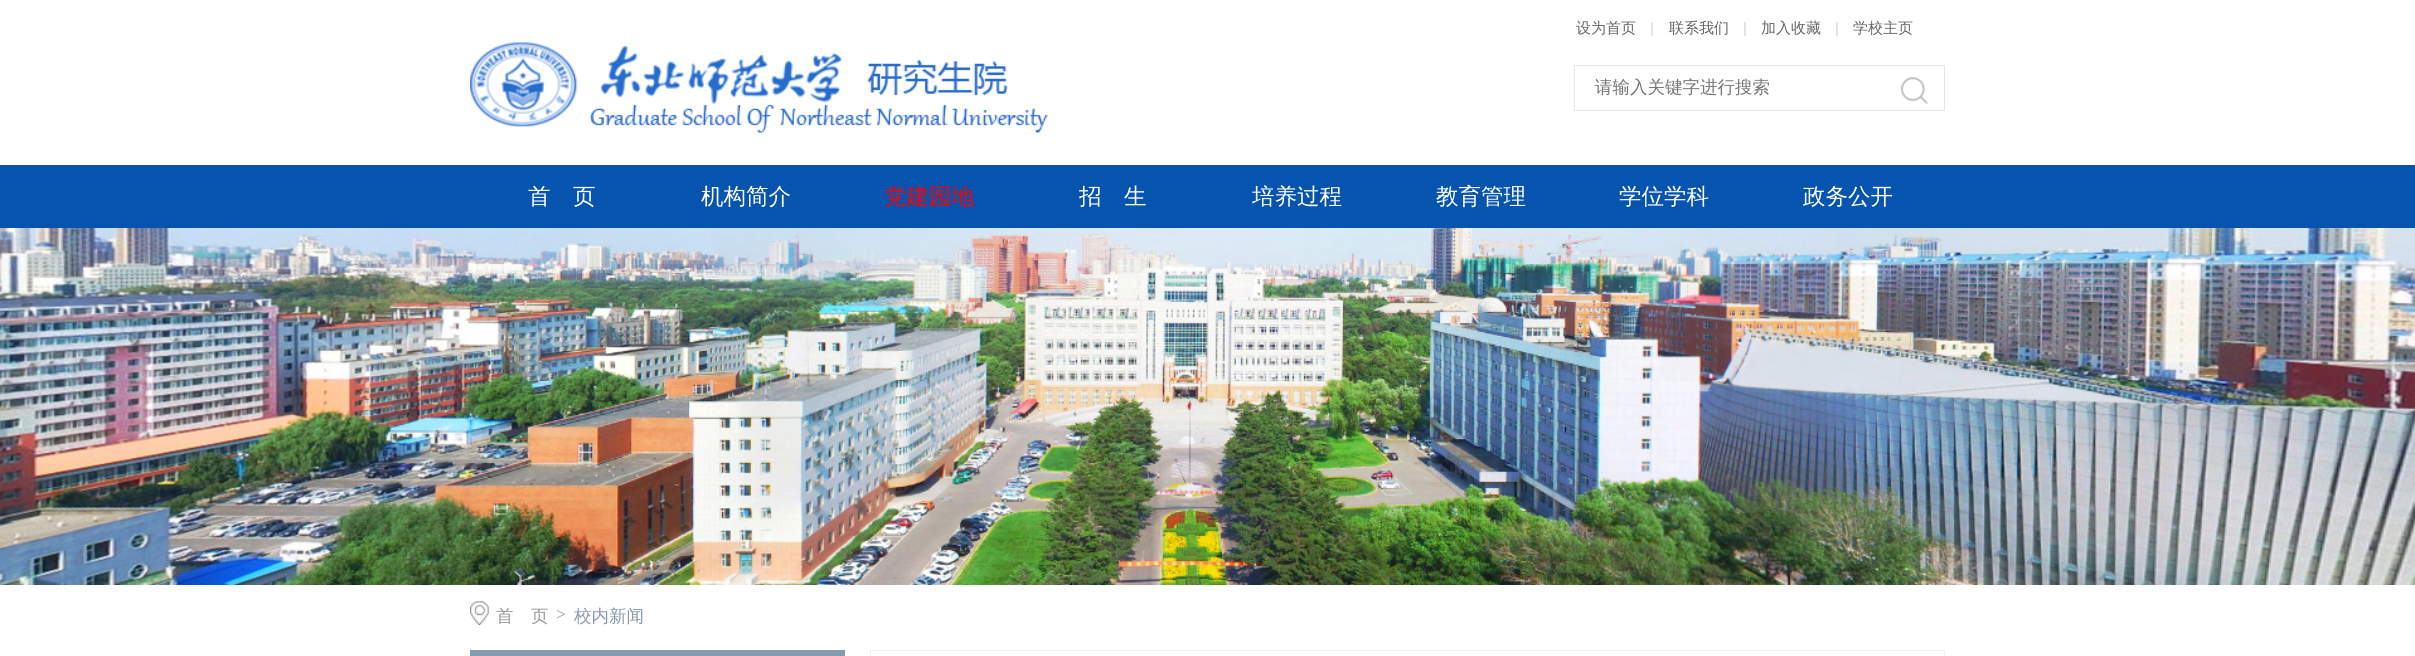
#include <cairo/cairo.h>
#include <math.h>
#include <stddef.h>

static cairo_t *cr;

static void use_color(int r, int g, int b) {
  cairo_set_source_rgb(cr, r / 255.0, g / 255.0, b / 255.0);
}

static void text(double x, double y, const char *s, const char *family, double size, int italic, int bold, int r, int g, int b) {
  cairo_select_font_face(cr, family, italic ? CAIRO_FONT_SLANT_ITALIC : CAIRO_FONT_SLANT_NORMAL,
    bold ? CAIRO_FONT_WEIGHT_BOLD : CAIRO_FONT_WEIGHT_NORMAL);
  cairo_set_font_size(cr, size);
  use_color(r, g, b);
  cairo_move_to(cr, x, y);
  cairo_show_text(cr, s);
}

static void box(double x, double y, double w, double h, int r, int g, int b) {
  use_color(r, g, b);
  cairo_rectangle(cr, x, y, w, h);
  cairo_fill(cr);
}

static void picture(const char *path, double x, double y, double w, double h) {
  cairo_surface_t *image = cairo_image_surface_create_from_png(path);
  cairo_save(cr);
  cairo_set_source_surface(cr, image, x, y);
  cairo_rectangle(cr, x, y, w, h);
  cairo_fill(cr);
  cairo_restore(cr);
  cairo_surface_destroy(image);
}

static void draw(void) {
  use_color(255, 255, 255);
  cairo_paint(cr);
  picture("img_01.png", 470, 42, 578, 91);
  cairo_rectangle(cr, 1574.5, 65.5, 370, 45);
  use_color(229, 229, 229);
  cairo_set_line_width(cr, 1);
  cairo_stroke(cr);
  picture("img_02.png", 1901, 77, 27, 27);
  box(0, 165, 2415, 63, 6, 84, 174);
  picture("img_03.png", 0, 228, 2415, 357);
  picture("img_04.png", 470, 601, 19, 24);
  box(470, 650, 375, 6, 134, 155, 174);
  cairo_rectangle(cr, 870.5, 650.5, 1074, 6);
  use_color(238, 238, 238);
  cairo_stroke(cr);
  text(1576, 33, "设为首页", "WenQuanYi Zen Hei Medium", 15, 0, 0, 102, 102, 102);
  text(1650, 33, "|", "Liberation Sans", 15, 0, 0, 209, 209, 209);
  text(1669, 33, "联系我们", "WenQuanYi Zen Hei Medium", 15, 0, 0, 102, 102, 102);
  text(1743, 33, "|", "Liberation Sans", 15, 0, 0, 209, 209, 209);
  text(1761, 33, "加入收藏", "WenQuanYi Zen Hei Medium", 15, 0, 0, 102, 102, 102);
  text(1835, 33, "|", "Liberation Sans", 15, 0, 0, 209, 209, 209);
  text(1853, 33, "学校主页", "WenQuanYi Zen Hei Medium", 15, 0, 0, 102, 102, 102);
  text(1595, 93, "请输入关键字进行搜索", "WenQuanYi Zen Hei Medium", 17.5, 0, 0, 117, 117, 117);
  text(528, 204, "首　页", "WenQuanYi Zen Hei Medium", 22.5, 0, 0, 255, 255, 255);
  text(701, 204, "机构简介", "WenQuanYi Zen Hei Medium", 22.5, 0, 0, 255, 255, 255);
  text(884, 204, "党建园地", "WenQuanYi Zen Hei Medium", 22.5, 0, 0, 255, 0, 0);
  text(1079, 204, "招　生", "WenQuanYi Zen Hei Medium", 22.5, 0, 0, 255, 255, 255);
  text(1252, 204, "培养过程", "WenQuanYi Zen Hei Medium", 22.5, 0, 0, 255, 255, 255);
  text(1436, 204, "教育管理", "WenQuanYi Zen Hei Medium", 22.5, 0, 0, 255, 255, 255);
  text(1619, 204, "学位学科", "WenQuanYi Zen Hei Medium", 22.5, 0, 0, 255, 255, 255);
  text(1803, 204, "政务公开", "WenQuanYi Zen Hei Medium", 22.5, 0, 0, 255, 255, 255);
  text(496, 622, "首　页", "WenQuanYi Zen Hei Medium", 17.5, 0, 0, 153, 153, 153);
  text(556, 620, ">", "Liberation Serif", 17.5, 0, 0, 153, 153, 153);
  text(574, 622, "校内新闻", "WenQuanYi Zen Hei Medium", 17.5, 0, 0, 134, 155, 174);
}

int main(void) {
  cairo_surface_t *surface = cairo_image_surface_create(CAIRO_FORMAT_RGB24, 2415, 656);
  cr = cairo_create(surface);
  cairo_font_options_t *options = cairo_font_options_create();
  cairo_font_options_set_hint_metrics(options, CAIRO_HINT_METRICS_OFF);
  cairo_font_options_set_hint_style(options, CAIRO_HINT_STYLE_NONE);
  cairo_set_font_options(cr, options);
  cairo_set_miter_limit(cr, 4);
  draw();
  cairo_surface_write_to_png(surface, "out.png");
  cairo_font_options_destroy(options);
  cairo_destroy(cr);
  cairo_surface_destroy(surface);
  return 0;
}
